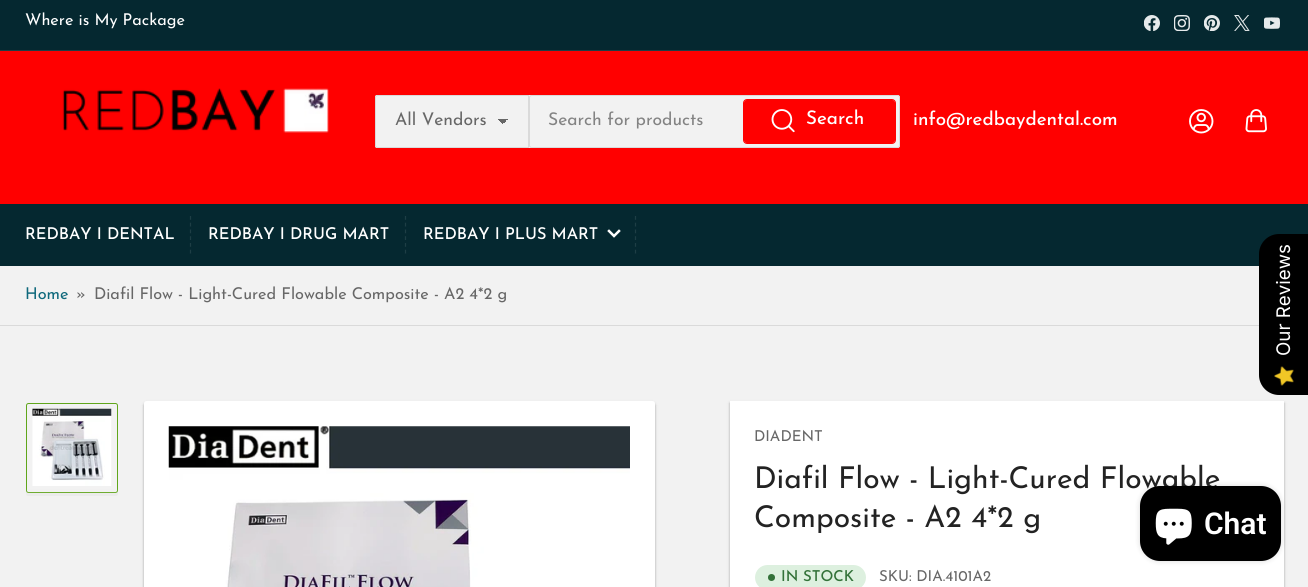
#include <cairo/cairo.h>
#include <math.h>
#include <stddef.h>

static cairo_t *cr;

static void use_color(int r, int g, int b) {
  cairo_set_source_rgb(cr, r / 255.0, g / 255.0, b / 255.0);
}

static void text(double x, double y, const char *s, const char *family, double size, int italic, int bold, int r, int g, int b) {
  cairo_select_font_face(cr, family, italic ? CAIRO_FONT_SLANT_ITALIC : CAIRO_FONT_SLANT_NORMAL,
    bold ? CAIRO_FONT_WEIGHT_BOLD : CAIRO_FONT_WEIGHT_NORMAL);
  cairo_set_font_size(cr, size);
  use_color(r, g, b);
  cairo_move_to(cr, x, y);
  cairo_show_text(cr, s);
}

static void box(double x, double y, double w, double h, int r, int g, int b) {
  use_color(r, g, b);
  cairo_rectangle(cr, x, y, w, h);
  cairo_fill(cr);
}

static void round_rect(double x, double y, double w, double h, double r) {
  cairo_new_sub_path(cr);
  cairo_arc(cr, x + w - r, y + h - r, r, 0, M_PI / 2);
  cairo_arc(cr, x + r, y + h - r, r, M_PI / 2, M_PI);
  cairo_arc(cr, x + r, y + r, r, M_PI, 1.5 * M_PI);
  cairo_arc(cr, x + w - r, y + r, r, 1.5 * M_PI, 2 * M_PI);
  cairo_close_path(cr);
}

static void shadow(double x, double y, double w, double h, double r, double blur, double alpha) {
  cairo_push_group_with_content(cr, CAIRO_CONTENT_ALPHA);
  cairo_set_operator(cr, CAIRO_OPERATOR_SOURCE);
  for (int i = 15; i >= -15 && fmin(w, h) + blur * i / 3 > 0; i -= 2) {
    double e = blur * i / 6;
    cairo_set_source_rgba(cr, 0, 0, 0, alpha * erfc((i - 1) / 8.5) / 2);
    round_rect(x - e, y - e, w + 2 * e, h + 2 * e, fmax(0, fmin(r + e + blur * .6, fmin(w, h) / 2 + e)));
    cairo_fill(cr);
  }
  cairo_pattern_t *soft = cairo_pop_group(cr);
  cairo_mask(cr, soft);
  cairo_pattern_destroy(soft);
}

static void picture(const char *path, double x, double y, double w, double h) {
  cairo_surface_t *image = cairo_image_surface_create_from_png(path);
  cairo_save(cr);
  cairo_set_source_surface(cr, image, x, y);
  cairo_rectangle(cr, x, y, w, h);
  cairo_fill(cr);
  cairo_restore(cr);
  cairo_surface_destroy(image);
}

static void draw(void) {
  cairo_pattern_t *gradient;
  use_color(242, 242, 242);
  cairo_paint(cr);
  box(0, 0, 1308, 50, 5, 40, 48);
  box(0, 50, 1308, 1, 30, 62, 69);
  picture("img_01.png", 1144, 15, 16, 16);
  picture("img_02.png", 1174, 15, 16, 16);
  picture("img_03.png", 1204, 15, 16, 16);
  picture("img_04.png", 1234, 15, 16, 16);
  picture("img_05.png", 1264, 17, 16, 12);
  box(0, 51, 1308, 153, 255, 0, 0);
  picture("img_06.png", 62, 88, 267, 45);
  use_color(242, 242, 242);
  round_rect(375, 95, 525, 53, 2.5);
  cairo_fill(cr);
  round_rect(375.5, 95.5, 153, 52, 2);
  use_color(218, 218, 218);
  cairo_set_line_width(cr, 1);
  cairo_stroke(cr);
  use_color(242, 242, 242);
  cairo_new_path(cr);
  cairo_move_to(cr, 377.5, 95);
  cairo_line_to(cr, 529, 95);
  cairo_line_to(cr, 529, 148);
  cairo_line_to(cr, 377.5, 148);
  cairo_curve_to(cr, 376, 148, 375, 147, 375, 145.5);
  cairo_line_to(cr, 375, 97.5);
  cairo_curve_to(cr, 375, 96, 376, 95, 377.5, 95);
  cairo_close_path(cr);
  cairo_fill(cr);
  gradient = cairo_pattern_create_linear(503, 118, 509, 124);
  cairo_pattern_add_color_stop_rgba(gradient, 0.5, 0.404, 0.404, 0.404, 1);
  cairo_pattern_add_color_stop_rgba(gradient, 0.5, 0.949, 0.949, 0.949, 1);
  cairo_set_source(cr, gradient);
  cairo_pattern_destroy(gradient);
  cairo_rectangle(cr, 503, 119, 6, 4);
  cairo_fill(cr);
  gradient = cairo_pattern_create_linear(496, 124, 503, 118);
  cairo_pattern_add_color_stop_rgba(gradient, 0.5, 0.949, 0.949, 0.949, 1);
  cairo_pattern_add_color_stop_rgba(gradient, 0.5, 0.404, 0.404, 0.404, 1);
  cairo_set_source(cr, gradient);
  cairo_pattern_destroy(gradient);
  cairo_rectangle(cr, 496, 119, 7, 5);
  cairo_fill(cr);
  cairo_new_path(cr);
  cairo_move_to(cr, 377.5, 95.5);
  cairo_line_to(cr, 528.5, 95.5);
  cairo_line_to(cr, 528.5, 147.5);
  cairo_line_to(cr, 377.5, 147.5);
  cairo_curve_to(cr, 376.5, 147.5, 375.5, 146.5, 375.5, 145.5);
  cairo_line_to(cr, 375.5, 97.5);
  cairo_curve_to(cr, 375.5, 96.5, 376.5, 95.5, 377.5, 95.5);
  cairo_close_path(cr);
  use_color(218, 218, 218);
  cairo_stroke(cr);
  use_color(242, 242, 242);
  round_rect(529.5, 95.5, 370, 52, 2);
  cairo_fill_preserve(cr);
  use_color(218, 218, 218);
  cairo_stroke(cr);
  round_rect(743.5, 99.5, 152, 44, 3.5);
  use_color(255, 0, 0);
  cairo_stroke(cr);
  round_rect(744, 100, 151, 43, 2.5);
  cairo_fill(cr);
  picture("img_07.png", 771, 109, 24, 24);
  picture("img_08.png", 1189, 109, 25, 25);
  picture("img_09.png", 1245, 109, 22, 24);
  box(0, 204, 1308, 62, 5, 40, 48);
  cairo_new_path(cr);
  cairo_move_to(cr, 190.5, 216);
  cairo_line_to(cr, 190.5, 254);
  use_color(30, 62, 69);
  cairo_set_line_width(cr, 1.2);
  cairo_set_dash(cr, (double[]){3.75, 3}, 2, 0);
  cairo_stroke(cr);
  cairo_new_path(cr);
  cairo_move_to(cr, 405.5, 216);
  cairo_line_to(cr, 405.5, 254);
  cairo_stroke(cr);
  cairo_new_path(cr);
  cairo_move_to(cr, 619, 231);
  cairo_line_to(cr, 614, 236);
  cairo_line_to(cr, 609, 231);
  use_color(255, 255, 255);
  cairo_set_line_width(cr, 2.5);
  cairo_set_line_cap(cr, CAIRO_LINE_CAP_SQUARE);
  cairo_set_dash(cr, NULL, 0, 0);
  cairo_stroke(cr);
  cairo_new_path(cr);
  cairo_move_to(cr, 635.5, 216);
  cairo_line_to(cr, 635.5, 254);
  use_color(30, 62, 69);
  cairo_set_line_width(cr, 1.2);
  cairo_set_line_cap(cr, CAIRO_LINE_CAP_BUTT);
  cairo_set_dash(cr, (double[]){3.75, 3}, 2, 0);
  cairo_stroke(cr);
  box(0, 325, 1259, 1, 218, 218, 218);
  use_color(235, 235, 235);
  cairo_new_path(cr);
  cairo_move_to(cr, 26, 407);
  cairo_line_to(cr, 26, 494);
  cairo_curve_to(cr, 26, 495, 27, 496, 28, 496);
  cairo_line_to(cr, 116, 496);
  cairo_curve_to(cr, 117, 496, 118, 495, 118, 494);
  cairo_line_to(cr, 118, 408);
  cairo_line_to(cr, 118, 407);
  cairo_line_to(cr, 118, 490);
  cairo_curve_to(cr, 118, 491, 116, 492, 115, 492);
  cairo_line_to(cr, 29, 492);
  cairo_curve_to(cr, 27, 492, 26, 491, 26, 490);
  cairo_close_path(cr);
  cairo_fill(cr);
  use_color(242, 242, 242);
  round_rect(26.5, 403.5, 91, 89, 2);
  cairo_fill_preserve(cr);
  use_color(96, 166, 27);
  cairo_set_line_width(cr, 1);
  cairo_set_dash(cr, NULL, 0, 0);
  cairo_stroke(cr);
  picture("img_10.png", 32, 408, 80, 78);
  gradient = cairo_pattern_create_linear(72, 531, 72, 488);
  cairo_pattern_add_color_stop_rgba(gradient, 0, 0.949, 0.949, 0.949, 1);
  cairo_pattern_add_color_stop_rgba(gradient, 1, 0.949, 0.949, 0.949, 0);
  cairo_set_source(cr, gradient);
  cairo_pattern_destroy(gradient);
  cairo_rectangle(cr, 26, 489, 92, 4);
  cairo_fill(cr);
  use_color(0, 0, 0);
  shadow(144, 403, 511, 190, 2.5, 1, 0.24);
  shadow(144, 403, 511, 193, 2.5, 2, 0.12);
  use_color(255, 255, 255);
  round_rect(144, 401, 511, 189, 2.5);
  cairo_fill(cr);
  picture("img_11.png", 168, 426, 462, 161);
  use_color(0, 0, 0);
  shadow(730, 403, 554, 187, 0, 1, 0.24);
  shadow(730, 403, 554, 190, 0, 2, 0.12);
  box(730, 401, 554, 186, 255, 255, 255);
  use_color(221, 240, 223);
  round_rect(755, 565, 111, 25, 12.5);
  cairo_fill(cr);
  use_color(51, 114, 57);
  cairo_arc(cr, 771.5, 577.5, 3.5, 0, 2 * M_PI);
  cairo_fill(cr);
  use_color(0, 0, 0);
  shadow(1140, 486, 141, 75, 20, 3, 0.15);
  use_color(0, 0, 0);
  cairo_new_path(cr);
  cairo_move_to(cr, 1259, 375);
  cairo_line_to(cr, 1259, 254);
  cairo_curve_to(cr, 1259, 243, 1268, 234, 1279, 234);
  cairo_line_to(cr, 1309, 234);
  cairo_line_to(cr, 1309, 395);
  cairo_line_to(cr, 1279, 395);
  cairo_curve_to(cr, 1268, 395, 1259, 386, 1259, 375);
  cairo_close_path(cr);
  cairo_fill(cr);
  picture("img_13.png", 1274, 366, 20, 20);
  text(25, 25, "Where is My Package", "Josefin Sans", 16.25, 0, 0, 255, 255, 255);
  text(395, 125, "All Vendors", "Josefin Sans", 17.5, 0, 0, 103, 103, 103);
  text(548, 125, "Search for products", "Josefin Sans", 17.5, 0, 0, 131, 131, 131);
  text(806, 124, "Search", "Josefin Sans Medium", 18.75, 0, 0, 255, 255, 255);
  text(913, 125, "info@redbaydental.com", "Josefin Sans Medium", 18.75, 0, 0, 255, 255, 255);
  text(25, 239, "REDBAY I DENTAL", "Josefin Sans Medium", 16.25, 0, 0, 255, 255, 255);
  text(208, 239, "REDBAY I DRUG MART", "Josefin Sans Medium", 16.25, 0, 0, 255, 255, 255);
  text(423, 239, "REDBAY I PLUS MART", "Josefin Sans Medium", 16.25, 0, 0, 255, 255, 255);
  text(25, 299, "Home", "Josefin Sans", 16.25, 0, 0, 15, 105, 124);
  text(76, 299, "»", "Josefin Sans", 16.25, 0, 0, 103, 103, 103);
  text(94, 299, "Diafil Flow - Light-Cured Flowable Composite - A2 4*2 g", "Josefin Sans", 16.25, 0, 0, 103, 103, 103);
  text(754, 441, "DIADENT", "Josefin Sans", 15, 0, 0, 103, 103, 103);
  text(754, 488, "Diafil Flow - Light-Cured Flowable", "Josefin Sans", 30, 0, 0, 35, 35, 35);
  text(754, 527, "Composite - A2 4*2 g", "Josefin Sans", 30, 0, 0, 35, 35, 35);
  text(781, 581, "IN STOCK", "Josefin Sans Medium", 15, 0, 0, 51, 114, 57);
  text(879, 581, "SKU: DIA.4101A2", "Josefin Sans", 15, 0, 0, 103, 103, 103);
  use_color(0, 0, 0);
  round_rect(1140, 486, 141, 75, 20);
  cairo_fill(cr);
  picture("img_12.png", 1155, 508, 37, 37);
  text(1204, 534, "Chat", "Roboto SemiBold", 30, 0, 0, 255, 255, 255);
  cairo_save(cr);
  cairo_translate(cr, 1290, 356);
  cairo_rotate(cr, -90 * M_PI / 180);
  text(0, 0, "Our Reviews", "Inter", 18.75, 0, 0, 255, 255, 255);
  cairo_restore(cr);
}

int main(void) {
  cairo_surface_t *surface = cairo_image_surface_create(CAIRO_FORMAT_RGB24, 1308, 587);
  cr = cairo_create(surface);
  cairo_font_options_t *options = cairo_font_options_create();
  cairo_font_options_set_hint_metrics(options, CAIRO_HINT_METRICS_OFF);
  cairo_font_options_set_hint_style(options, CAIRO_HINT_STYLE_NONE);
  cairo_set_font_options(cr, options);
  cairo_set_miter_limit(cr, 4);
  draw();
  cairo_surface_write_to_png(surface, "out.png");
  cairo_font_options_destroy(options);
  cairo_destroy(cr);
  cairo_surface_destroy(surface);
  return 0;
}
